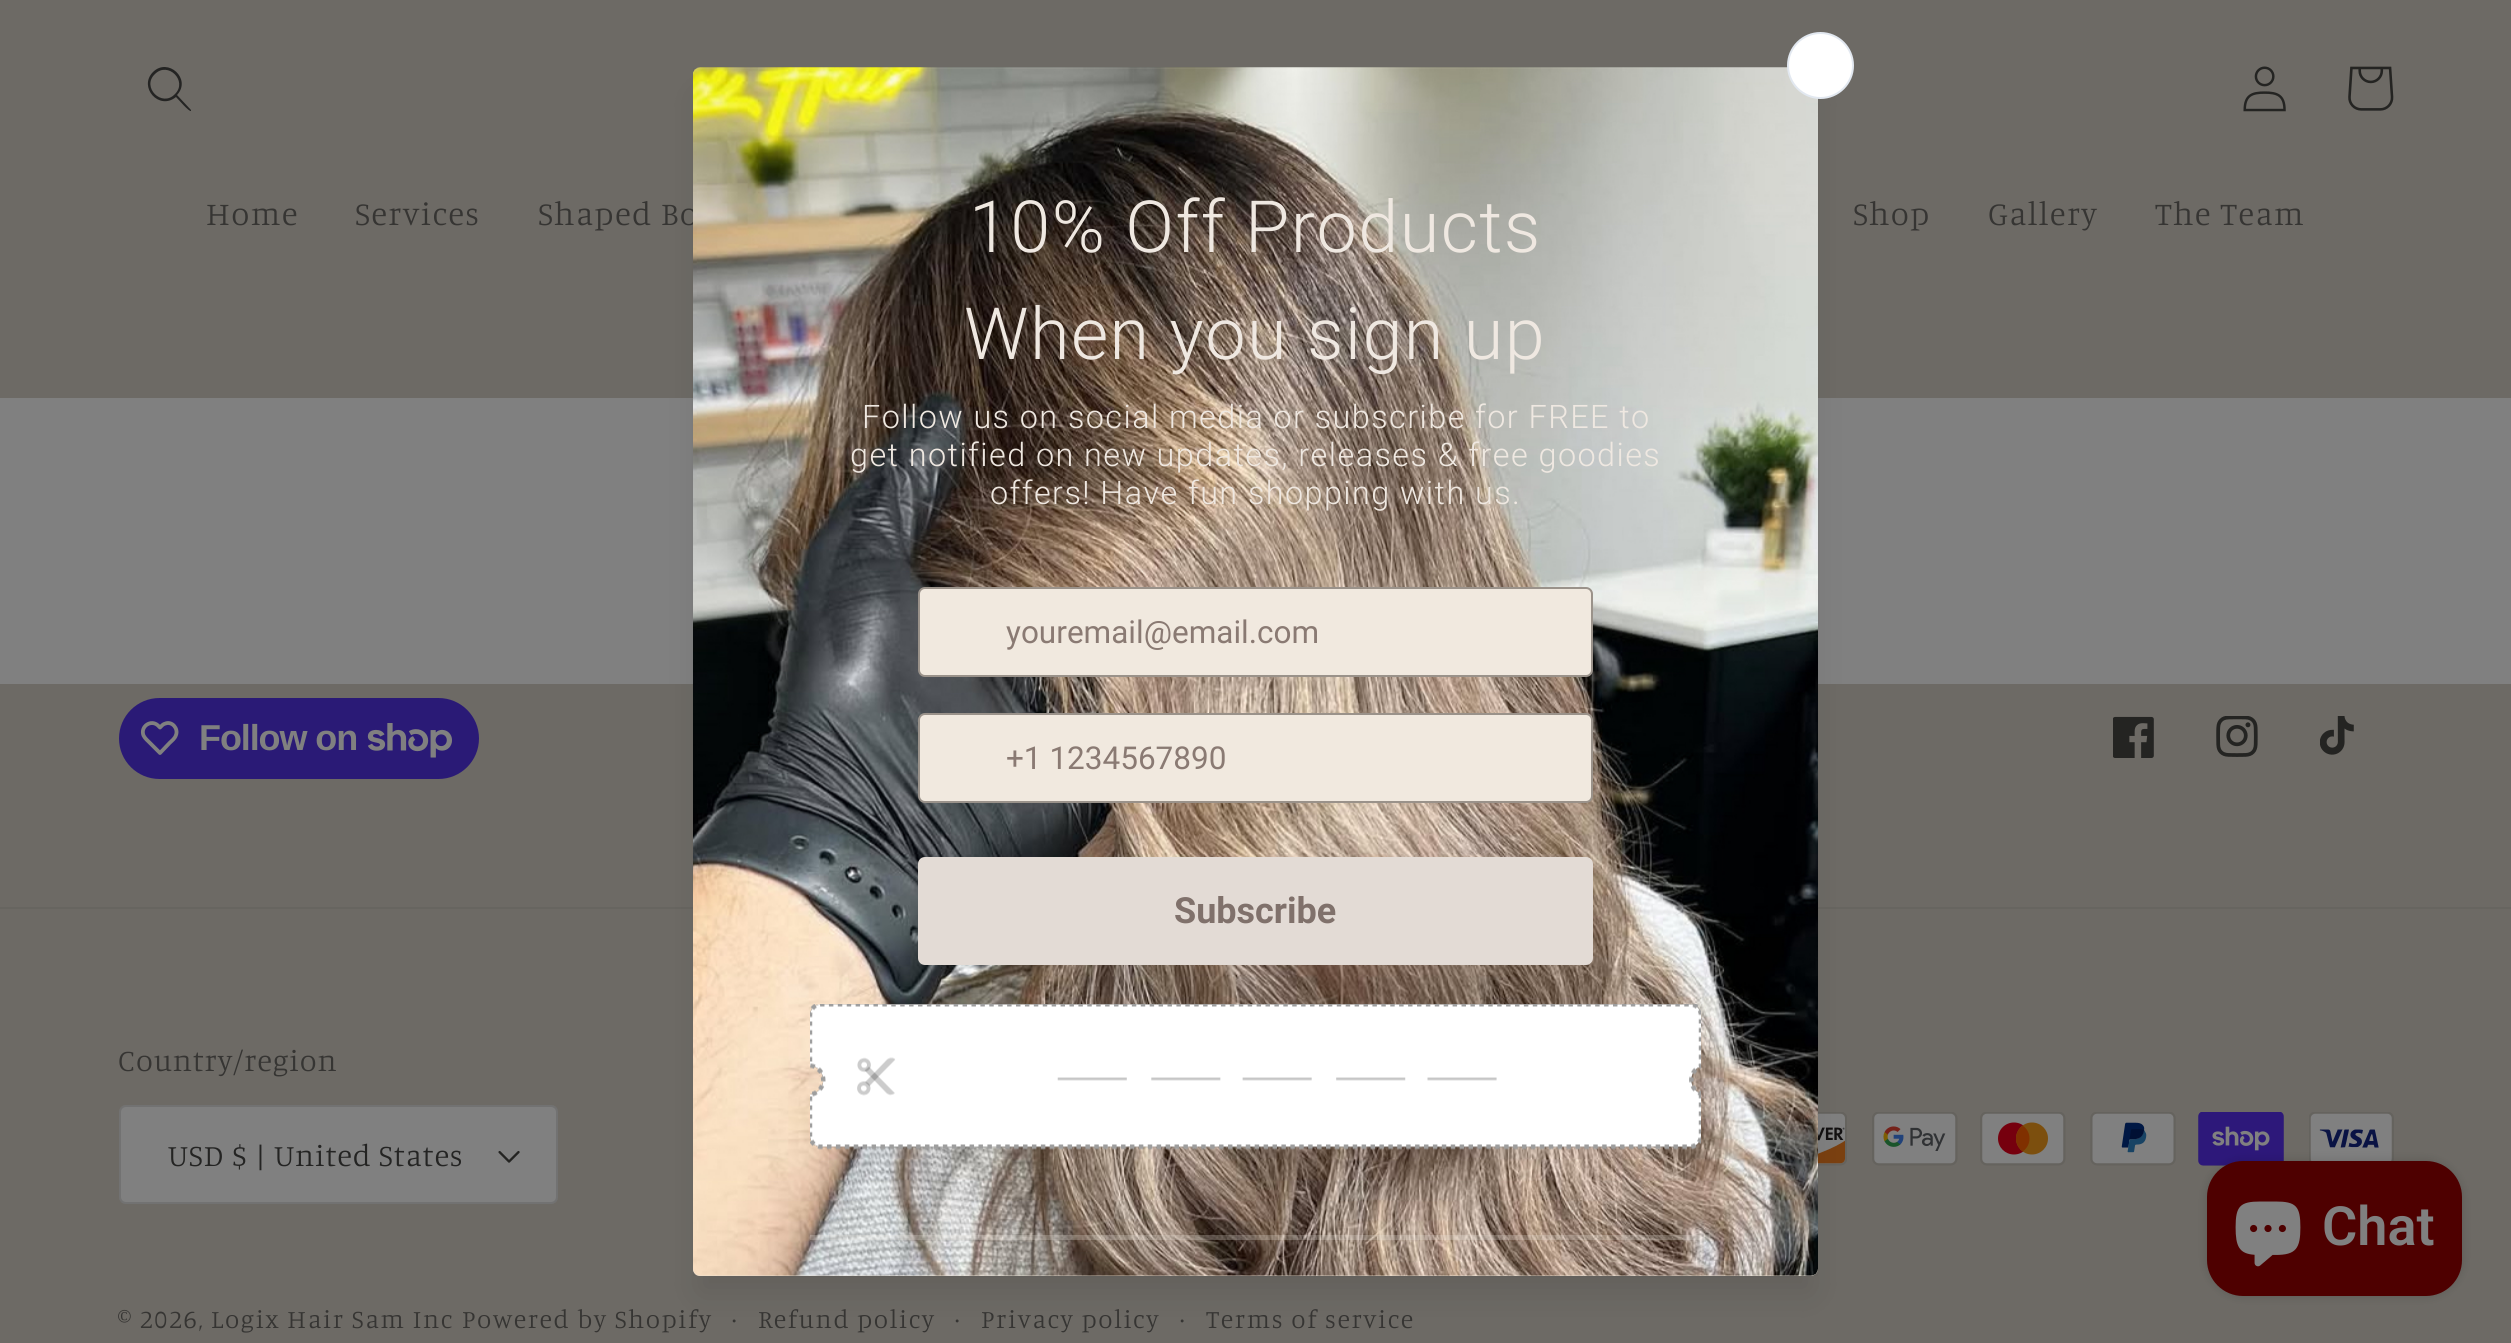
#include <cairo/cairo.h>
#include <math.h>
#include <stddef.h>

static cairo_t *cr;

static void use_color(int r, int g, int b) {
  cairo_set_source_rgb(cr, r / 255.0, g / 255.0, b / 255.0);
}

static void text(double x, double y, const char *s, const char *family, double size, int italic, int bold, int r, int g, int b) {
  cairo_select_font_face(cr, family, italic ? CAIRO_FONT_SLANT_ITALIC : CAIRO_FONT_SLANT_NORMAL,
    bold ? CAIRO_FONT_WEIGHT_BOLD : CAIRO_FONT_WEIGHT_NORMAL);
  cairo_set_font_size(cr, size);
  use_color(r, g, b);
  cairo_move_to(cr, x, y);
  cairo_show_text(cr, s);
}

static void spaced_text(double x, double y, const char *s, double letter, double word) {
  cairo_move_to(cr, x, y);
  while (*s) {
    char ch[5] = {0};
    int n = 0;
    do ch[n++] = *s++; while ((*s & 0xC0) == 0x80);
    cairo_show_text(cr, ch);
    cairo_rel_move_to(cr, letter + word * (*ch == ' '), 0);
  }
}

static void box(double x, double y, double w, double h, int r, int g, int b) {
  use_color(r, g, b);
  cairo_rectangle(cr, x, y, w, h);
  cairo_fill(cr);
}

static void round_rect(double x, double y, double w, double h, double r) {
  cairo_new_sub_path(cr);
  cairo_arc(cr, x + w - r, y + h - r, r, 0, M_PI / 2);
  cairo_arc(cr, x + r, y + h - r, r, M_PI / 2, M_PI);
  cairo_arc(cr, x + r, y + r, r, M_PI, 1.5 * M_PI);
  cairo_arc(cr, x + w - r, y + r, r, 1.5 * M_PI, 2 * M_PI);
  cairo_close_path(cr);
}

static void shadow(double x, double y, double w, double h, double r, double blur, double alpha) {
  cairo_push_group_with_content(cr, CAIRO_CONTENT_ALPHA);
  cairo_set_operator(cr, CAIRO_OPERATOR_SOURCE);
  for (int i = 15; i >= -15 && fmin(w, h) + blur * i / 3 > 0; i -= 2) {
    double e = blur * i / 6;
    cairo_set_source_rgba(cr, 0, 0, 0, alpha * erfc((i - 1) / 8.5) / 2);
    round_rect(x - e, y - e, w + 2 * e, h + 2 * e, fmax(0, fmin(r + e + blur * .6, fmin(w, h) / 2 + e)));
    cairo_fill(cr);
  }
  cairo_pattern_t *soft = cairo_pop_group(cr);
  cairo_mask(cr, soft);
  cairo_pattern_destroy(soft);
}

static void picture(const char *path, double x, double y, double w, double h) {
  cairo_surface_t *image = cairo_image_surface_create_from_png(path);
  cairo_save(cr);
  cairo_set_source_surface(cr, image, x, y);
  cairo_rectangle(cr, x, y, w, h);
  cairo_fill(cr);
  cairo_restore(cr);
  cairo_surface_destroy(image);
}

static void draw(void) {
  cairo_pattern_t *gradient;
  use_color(128, 128, 128);
  cairo_paint(cr);
  gradient = cairo_pattern_create_linear(2361, -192, 150, 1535);
  cairo_pattern_add_color_stop_rgba(gradient, 1, 0.427, 0.416, 0.396, 1);
  cairo_pattern_add_color_stop_rgba(gradient, 1, 0.502, 0.376, 0.278, 1);
  cairo_set_source(cr, gradient);
  cairo_pattern_destroy(gradient);
  cairo_rectangle(cr, 0, 0, 2511, 398);
  cairo_fill(cr);
  cairo_rectangle(cr, 0, 684, 2511, 659);
  cairo_fill(cr);
  box(0, 907, 2511, 2, 103, 101, 96);
  picture("img_10.png", 1818, 1112, 29, 54);
  use_color(0, 0, 0);
  shadow(700, 97, 1111, 1195, 0, 17, 0.1);
  picture("img_11.png", 1872, 1112, 86, 54);
  cairo_save(cr);
  cairo_rectangle(cr, 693, 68, 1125, 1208);
  cairo_clip(cr);
  shadow(700, 74, 1111, 1195, 0, 22.5, 0.12);
  cairo_restore(cr);
  use_color(36, 36, 35);
  cairo_set_fill_rule(cr, CAIRO_FILL_RULE_EVEN_ODD);
  cairo_new_path(cr);
  cairo_move_to(cr, 175, 94);
  cairo_curve_to(cr, 162, 108, 141, 87, 155, 74);
  cairo_curve_to(cr, 168, 61, 188, 81, 175, 94);
  cairo_close_path(cr);
  cairo_move_to(cr, 176, 97);
  cairo_curve_to(cr, 159, 111, 138, 87, 153, 72);
  cairo_curve_to(cr, 168, 57, 192, 79, 177, 95);
  cairo_line_to(cr, 191, 110);
  cairo_line_to(cr, 191, 111);
  cairo_curve_to(cr, 189, 112, 178, 99, 176, 97);
  cairo_close_path(cr);
  cairo_fill(cr);
  picture("img_03.png", 2243, 66, 43, 46);
  picture("img_04.png", 2348, 66, 46, 45);
  use_color(42, 26, 118);
  round_rect(119, 698, 360, 81, 40.5);
  cairo_fill(cr);
  cairo_new_path(cr);
  cairo_move_to(cr, 158, 725.5);
  cairo_line_to(cr, 160, 727.5);
  cairo_curve_to(cr, 161.5, 726, 163, 724, 165.5, 723.5);
  cairo_curve_to(cr, 172, 721, 178.5, 728.5, 176, 735);
  cairo_curve_to(cr, 175, 738.5, 171.5, 741, 169.5, 743);
  cairo_line_to(cr, 160, 753);
  cairo_line_to(cr, 150, 743);
  cairo_curve_to(cr, 148, 741, 145, 738.5, 143.5, 735.5);
  cairo_curve_to(cr, 140, 726.5, 151, 719, 158, 725.5);
  cairo_close_path(cr);
  use_color(128, 128, 128);
  cairo_set_line_width(cr, 3.8);
  cairo_set_line_join(cr, CAIRO_LINE_JOIN_ROUND);
  cairo_stroke(cr);
  picture("img_05.png", 367, 723, 85, 35);
  picture("img_06.png", 2113, 716, 41, 42);
  picture("img_07.png", 2216, 716, 42, 41);
  picture("img_08.png", 2320, 716, 34, 39);
  round_rect(119, 1105, 439, 99, 7);
  cairo_fill(cr);
  picture("img_09.png", 498, 1150, 22, 13);
  round_rect(120, 1106, 437, 97, 6);
  cairo_set_source_rgba(cr, 0.141, 0.141, 0.137, 0.15);
  cairo_set_line_width(cr, 2);
  cairo_set_line_join(cr, CAIRO_LINE_JOIN_MITER);
  cairo_stroke(cr);
  picture("img_12.png", 1980, 1112, 86, 54);
  picture("img_13.png", 2090, 1112, 86, 54);
  picture("img_14.png", 2198, 1112, 86, 54);
  picture("img_15.png", 2309, 1112, 85, 49);
  use_color(0, 0, 0);
  shadow(2207, 1161, 255, 135, 36, 5.5, 0.15);
  use_color(78, 0, 0);
  round_rect(2207, 1161, 255, 135, 36);
  cairo_fill(cr);
  picture("img_16.png", 2235, 1201, 66, 66);
  cairo_select_font_face(cr, "Manuale Light", CAIRO_FONT_SLANT_NORMAL, CAIRO_FONT_WEIGHT_NORMAL);
  cairo_set_font_size(cr, 33);
  use_color(54, 53, 51);
  spaced_text(206, 225, "Home", 1.42, 0);
  spaced_text(355, 225, "Services", 1.42, 0);
  spaced_text(538, 225, "Shaped Bo", 1.42, 0);
  use_color(235, 225, 212);
  round_rect(693, 68, 1125, 1208, 7);
  cairo_fill(cr);
  picture("img_01.png", 693, 67, 1125, 1209);
  use_color(255, 255, 255);
  cairo_arc(cr, 1820.5, 65.5, 32.5, 0, 2 * M_PI);
  cairo_fill_preserve(cr);
  use_color(226, 232, 240);
  cairo_stroke(cr);
  cairo_set_source_rgba(cr, 0.937, 0.91, 0.886, 0.25);
  cairo_rectangle(cr, 810, 1235, 891, 5);
  cairo_fill(cr);
  picture("img_02.png", 810, 1004, 891, 146);
  use_color(241, 233, 223);
  round_rect(919, 714, 673, 88, 6);
  cairo_fill_preserve(cr);
  use_color(154, 146, 138);
  cairo_stroke(cr);
  text(1006, 769, "+1 1234567890", "Roboto", 31.5, 0, 0, 138, 122, 115);
  use_color(241, 233, 223);
  round_rect(919, 588, 673, 88, 6);
  cairo_fill_preserve(cr);
  use_color(154, 146, 138);
  cairo_stroke(cr);
  text(1006, 643, "youremail@email.com", "Roboto", 31.5, 0, 0, 138, 122, 115);
  use_color(227, 219, 213);
  round_rect(918, 857, 675, 108, 7);
  cairo_fill(cr);
  text(1174, 923, "Subscribe", "Roboto", 36, 0, 1, 128, 113, 107);
  cairo_select_font_face(cr, "Roboto Light", CAIRO_FONT_SLANT_NORMAL, CAIRO_FONT_WEIGHT_NORMAL);
  cairo_set_font_size(cr, 32.4);
  use_color(239, 232, 225);
  spaced_text(990, 504, "offers! Have fun shopping with us.", 1.42, 0);
  spaced_text(850, 466, "get notified on new updates, releases & free goodies", 1.42, 0);
  spaced_text(862, 428, "Follow us on social media or subscribe for FREE to", 1.42, 0);
  cairo_set_font_size(cr, 72);
  spaced_text(964, 359, "When you sign up", 1.42, 0);
  spaced_text(969, 252, "10% Off Products", 1.42, 0);
  cairo_select_font_face(cr, "Manuale Light", CAIRO_FONT_SLANT_NORMAL, CAIRO_FONT_WEIGHT_NORMAL);
  cairo_set_font_size(cr, 33);
  use_color(54, 53, 51);
  spaced_text(1853, 225, "Shop", 1.42, 0);
  spaced_text(1988, 225, "Gallery", 1.42, 0);
  spaced_text(2155, 225, "The Team", 1.42, 0);
  cairo_select_font_face(cr, "Liberation Sans", CAIRO_FONT_SLANT_NORMAL, CAIRO_FONT_WEIGHT_BOLD);
  cairo_set_font_size(cr, 36);
  use_color(128, 128, 128);
  spaced_text(199, 750, "Follow on", -1.1, 0);
  cairo_select_font_face(cr, "Manuale Light", CAIRO_FONT_SLANT_NORMAL, CAIRO_FONT_WEIGHT_NORMAL);
  cairo_set_font_size(cr, 30.75);
  use_color(54, 53, 51);
  spaced_text(118, 1071, "Country/region", 0.9, 0);
  use_color(36, 36, 35);
  spaced_text(168, 1166, "USD $ | United States", 0.9, 0);
  cairo_set_font_size(cr, 26);
  use_color(54, 53, 51);
  spaced_text(118, 1328, "© 2026, Logix Hair Sam Inc", 1.65, 0);
  spaced_text(462, 1328, "Powered by Shopify", 1.65, 0);
  cairo_set_font_size(cr, 28);
  spaced_text(731, 1328, "·", 1.65, 0);
  cairo_set_font_size(cr, 26);
  spaced_text(758, 1328, "Refund policy", 1.65, 0);
  cairo_set_font_size(cr, 28);
  spaced_text(954, 1328, "·", 1.65, 0);
  cairo_set_font_size(cr, 26);
  spaced_text(981, 1328, "Privacy policy", 1.65, 0);
  cairo_set_font_size(cr, 28);
  spaced_text(1179, 1328, "·", 1.65, 0);
  cairo_set_font_size(cr, 26);
  spaced_text(1206, 1328, "Terms of service", 1.65, 0);
  text(2322, 1245, "Chat", "Roboto SemiBold", 54, 0, 0, 128, 128, 128);
}

int main(void) {
  cairo_surface_t *surface = cairo_image_surface_create(CAIRO_FORMAT_RGB24, 2511, 1343);
  cr = cairo_create(surface);
  cairo_font_options_t *options = cairo_font_options_create();
  cairo_font_options_set_hint_metrics(options, CAIRO_HINT_METRICS_OFF);
  cairo_font_options_set_hint_style(options, CAIRO_HINT_STYLE_NONE);
  cairo_set_font_options(cr, options);
  cairo_set_miter_limit(cr, 4);
  draw();
  cairo_surface_write_to_png(surface, "out.png");
  cairo_font_options_destroy(options);
  cairo_destroy(cr);
  cairo_surface_destroy(surface);
  return 0;
}
